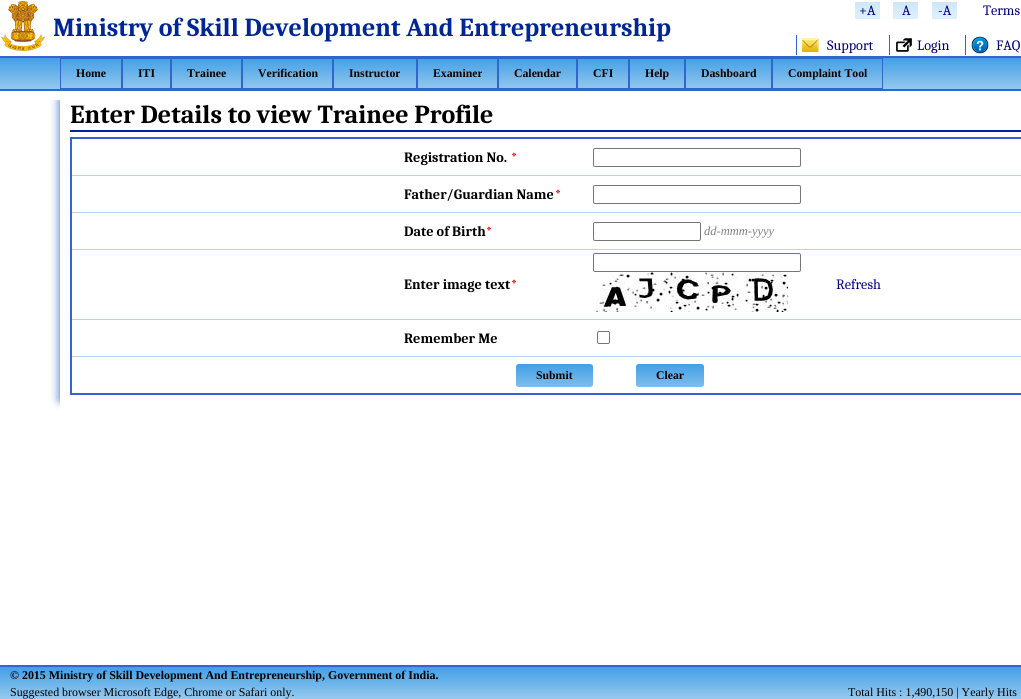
#include <cairo/cairo.h>
#include <math.h>
#include <stddef.h>

static cairo_t *cr;

static void use_color(int r, int g, int b) {
  cairo_set_source_rgb(cr, r / 255.0, g / 255.0, b / 255.0);
}

static void text(double x, double y, const char *s, const char *family, double size, int italic, int bold, int r, int g, int b) {
  cairo_select_font_face(cr, family, italic ? CAIRO_FONT_SLANT_ITALIC : CAIRO_FONT_SLANT_NORMAL,
    bold ? CAIRO_FONT_WEIGHT_BOLD : CAIRO_FONT_WEIGHT_NORMAL);
  cairo_set_font_size(cr, size);
  use_color(r, g, b);
  cairo_move_to(cr, x, y);
  cairo_show_text(cr, s);
}

static void box(double x, double y, double w, double h, int r, int g, int b) {
  use_color(r, g, b);
  cairo_rectangle(cr, x, y, w, h);
  cairo_fill(cr);
}

static void round_rect(double x, double y, double w, double h, double r) {
  cairo_new_sub_path(cr);
  cairo_arc(cr, x + w - r, y + h - r, r, 0, M_PI / 2);
  cairo_arc(cr, x + r, y + h - r, r, M_PI / 2, M_PI);
  cairo_arc(cr, x + r, y + r, r, M_PI, 1.5 * M_PI);
  cairo_arc(cr, x + w - r, y + r, r, 1.5 * M_PI, 2 * M_PI);
  cairo_close_path(cr);
}

static void shadow(double x, double y, double w, double h, double r, double blur, double alpha) {
  cairo_push_group_with_content(cr, CAIRO_CONTENT_ALPHA);
  cairo_set_operator(cr, CAIRO_OPERATOR_SOURCE);
  for (int i = 15; i >= -15 && fmin(w, h) + blur * i / 3 > 0; i -= 2) {
    double e = blur * i / 6;
    cairo_set_source_rgba(cr, 0, 0, 0, alpha * erfc((i - 1) / 8.5) / 2);
    round_rect(x - e, y - e, w + 2 * e, h + 2 * e, fmax(0, fmin(r + e + blur * .6, fmin(w, h) / 2 + e)));
    cairo_fill(cr);
  }
  cairo_pattern_t *soft = cairo_pop_group(cr);
  cairo_mask(cr, soft);
  cairo_pattern_destroy(soft);
}

static void picture(const char *path, double x, double y, double w, double h) {
  cairo_surface_t *image = cairo_image_surface_create_from_png(path);
  cairo_save(cr);
  cairo_set_source_surface(cr, image, x, y);
  cairo_rectangle(cr, x, y, w, h);
  cairo_fill(cr);
  cairo_restore(cr);
  cairo_surface_destroy(image);
}

static void draw(void) {
  use_color(255, 255, 255);
  cairo_paint(cr);
  cairo_save(cr);
  cairo_rectangle(cr, 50, 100, 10, 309);
  cairo_clip(cr);
  use_color(51, 102, 204);
  shadow(60, 100, 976, 300, 0, 5, 1);
  cairo_restore(cr);
  box(50, 89, 971, 11, 255, 255, 255);
  picture("img_01.png", 1, 1, 44, 50);
  picture("img_02.png", 855, 2, 25, 17);
  picture("img_02.png", 893, 2, 25, 17);
  picture("img_02.png", 932, 2, 25, 17);
  box(796, 35, 1, 20, 51, 102, 204);
  picture("img_03.png", 802, 38, 17, 14);
  box(889, 35, 1, 20, 51, 102, 204);
  picture("img_04.png", 896, 38, 16, 14);
  box(965, 35, 1, 20, 51, 102, 204);
  picture("img_05.png", 971, 36, 18, 18);
  picture("img_06.png", 0, 58, 1021, 31);
  box(0, 56, 1021, 2, 51, 102, 204);
  box(0, 89, 1021, 2, 51, 102, 204);
  cairo_rectangle(cr, 60.5, 58.5, 61, 30);
  cairo_set_line_width(cr, 1);
  cairo_stroke(cr);
  cairo_rectangle(cr, 122.5, 58.5, 48, 30);
  cairo_stroke(cr);
  cairo_rectangle(cr, 171.5, 58.5, 70, 30);
  cairo_stroke(cr);
  cairo_rectangle(cr, 242.5, 58.5, 90, 30);
  cairo_stroke(cr);
  cairo_rectangle(cr, 333.5, 58.5, 83, 30);
  cairo_stroke(cr);
  cairo_rectangle(cr, 417.5, 58.5, 80, 30);
  cairo_stroke(cr);
  cairo_rectangle(cr, 498.5, 58.5, 78, 30);
  cairo_stroke(cr);
  cairo_rectangle(cr, 577.5, 58.5, 51, 30);
  cairo_stroke(cr);
  cairo_rectangle(cr, 629.5, 58.5, 55, 30);
  cairo_stroke(cr);
  cairo_rectangle(cr, 685.5, 58.5, 86, 30);
  cairo_stroke(cr);
  cairo_rectangle(cr, 772.5, 58.5, 110, 30);
  cairo_stroke(cr);
  box(70, 130, 951, 2, 0, 37, 149);
  box(70, 137, 951, 2, 51, 102, 204);
  box(70, 393, 951, 2, 51, 102, 204);
  box(71, 175, 950, 1, 191, 207, 240);
  box(71, 212, 950, 1, 191, 207, 240);
  box(71, 249, 950, 1, 191, 207, 240);
  box(71, 319, 950, 1, 191, 207, 240);
  box(71, 356, 950, 1, 191, 207, 240);
  box(70, 137, 2, 258, 51, 102, 204);
  round_rect(593.5, 148.5, 207, 18, 1.5);
  use_color(118, 118, 118);
  cairo_stroke(cr);
  round_rect(593.5, 185.5, 207, 18, 1.5);
  cairo_stroke(cr);
  round_rect(593.5, 222.5, 107, 18, 1.5);
  cairo_stroke(cr);
  round_rect(593.5, 253.5, 207, 18, 1.5);
  cairo_stroke(cr);
  picture("img_07.png", 593, 272, 195, 40);
  round_rect(597.5, 331.5, 12, 12, 1.5);
  cairo_stroke(cr);
  picture("img_08.png", 516, 364, 77, 23);
  picture("img_09.png", 636, 364, 68, 23);
  picture("img_10.png", 0, 667, 1021, 32);
  box(0, 665, 1021, 2, 51, 102, 204);
  text(859, 15, "+A", "Caladea", 14.25, 0, 0, 0, 0, 128);
  text(902, 15, "A", "Caladea", 14.25, 0, 0, 0, 0, 128);
  text(938, 15, "-A", "Caladea", 14.25, 0, 0, 0, 0, 128);
  text(983, 15, "Terms", "Caladea", 14.25, 0, 0, 0, 0, 128);
  text(53, 36, "Ministry of Skill Development And Entrepreneurship", "Caladea", 26, 0, 1, 0, 37, 149);
  text(827, 50, "Support", "Caladea", 14.25, 0, 0, 0, 0, 128);
  text(917, 50, "Login", "Caladea", 14.25, 0, 0, 0, 0, 128);
  text(996, 50, "FAQ", "Caladea", 14.25, 0, 0, 0, 0, 128);
  text(76, 77, "Home", "Liberation Serif", 11.75, 0, 1, 0, 0, 0);
  text(138, 77, "ITI", "Liberation Serif", 11.75, 0, 1, 0, 0, 0);
  text(187, 77, "Trainee", "Liberation Serif", 11.75, 0, 1, 0, 0, 0);
  text(258, 77, "Verification", "Liberation Serif", 11.75, 0, 1, 0, 0, 0);
  text(349, 77, "Instructor", "Liberation Serif", 11.75, 0, 1, 0, 0, 0);
  text(433, 77, "Examiner", "Liberation Serif", 11.75, 0, 1, 0, 0, 0);
  text(514, 77, "Calendar", "Liberation Serif", 11.75, 0, 1, 0, 0, 0);
  text(593, 77, "CFI", "Liberation Serif", 11.75, 0, 1, 0, 0, 0);
  text(645, 77, "Help", "Liberation Serif", 11.75, 0, 1, 0, 0, 0);
  text(701, 77, "Dashboard", "Liberation Serif", 11.75, 0, 1, 0, 0, 0);
  text(788, 77, "Complaint Tool", "Liberation Serif", 11.75, 0, 1, 0, 0, 0);
  text(70, 123, "Enter Details to view Trainee Profile", "Caladea", 26, 0, 1, 0, 0, 0);
  text(404, 162, "Registration No.", "Caladea", 14.25, 0, 1, 0, 0, 0);
  text(511, 162, "*", "Caladea", 14.25, 0, 1, 255, 0, 0);
  text(404, 199, "Father/Guardian Name", "Caladea", 14.25, 0, 1, 0, 0, 0);
  text(555, 199, "*", "Caladea", 14.25, 0, 1, 255, 0, 0);
  text(404, 236, "Date of Birth", "Caladea", 14.25, 0, 1, 0, 0, 0);
  text(486, 236, "*", "Caladea", 14.25, 0, 1, 255, 0, 0);
  text(704, 235, "dd-mmm-yyyy", "Liberation Serif", 12.5, 1, 0, 128, 128, 128);
  text(404, 289, "Enter image text", "Caladea", 14.25, 0, 1, 0, 0, 0);
  text(511, 289, "*", "Caladea", 14.25, 0, 1, 255, 0, 0);
  text(836, 289, "Refresh", "Caladea", 14.25, 0, 0, 0, 0, 128);
  text(404, 343, "Remember Me", "Caladea", 14.25, 0, 1, 0, 0, 0);
  text(536, 379, "Submit", "Liberation Serif", 11.75, 0, 1, 0, 0, 0);
  text(656, 379, "Clear", "Liberation Serif", 11.75, 0, 1, 0, 0, 0);
  text(10, 679, "© 2015 Ministry of Skill Development And Entrepreneurship, Government of India.", "Liberation Serif", 11.95, 0, 1, 0, 0, 0);
  text(10, 696, "Suggested browser Microsoft Edge, Chrome or Safari only.", "Liberation Serif", 11.95, 0, 0, 0, 0, 0);
  text(848, 696, "Total Hits : 1,490,150 | Yearly Hits", "Liberation Serif", 11.95, 0, 0, 0, 0, 0);
}

int main(void) {
  cairo_surface_t *surface = cairo_image_surface_create(CAIRO_FORMAT_RGB24, 1021, 699);
  cr = cairo_create(surface);
  cairo_font_options_t *options = cairo_font_options_create();
  cairo_font_options_set_hint_metrics(options, CAIRO_HINT_METRICS_OFF);
  cairo_font_options_set_hint_style(options, CAIRO_HINT_STYLE_NONE);
  cairo_set_font_options(cr, options);
  cairo_set_miter_limit(cr, 4);
  draw();
  cairo_surface_write_to_png(surface, "out.png");
  cairo_font_options_destroy(options);
  cairo_destroy(cr);
  cairo_surface_destroy(surface);
  return 0;
}
